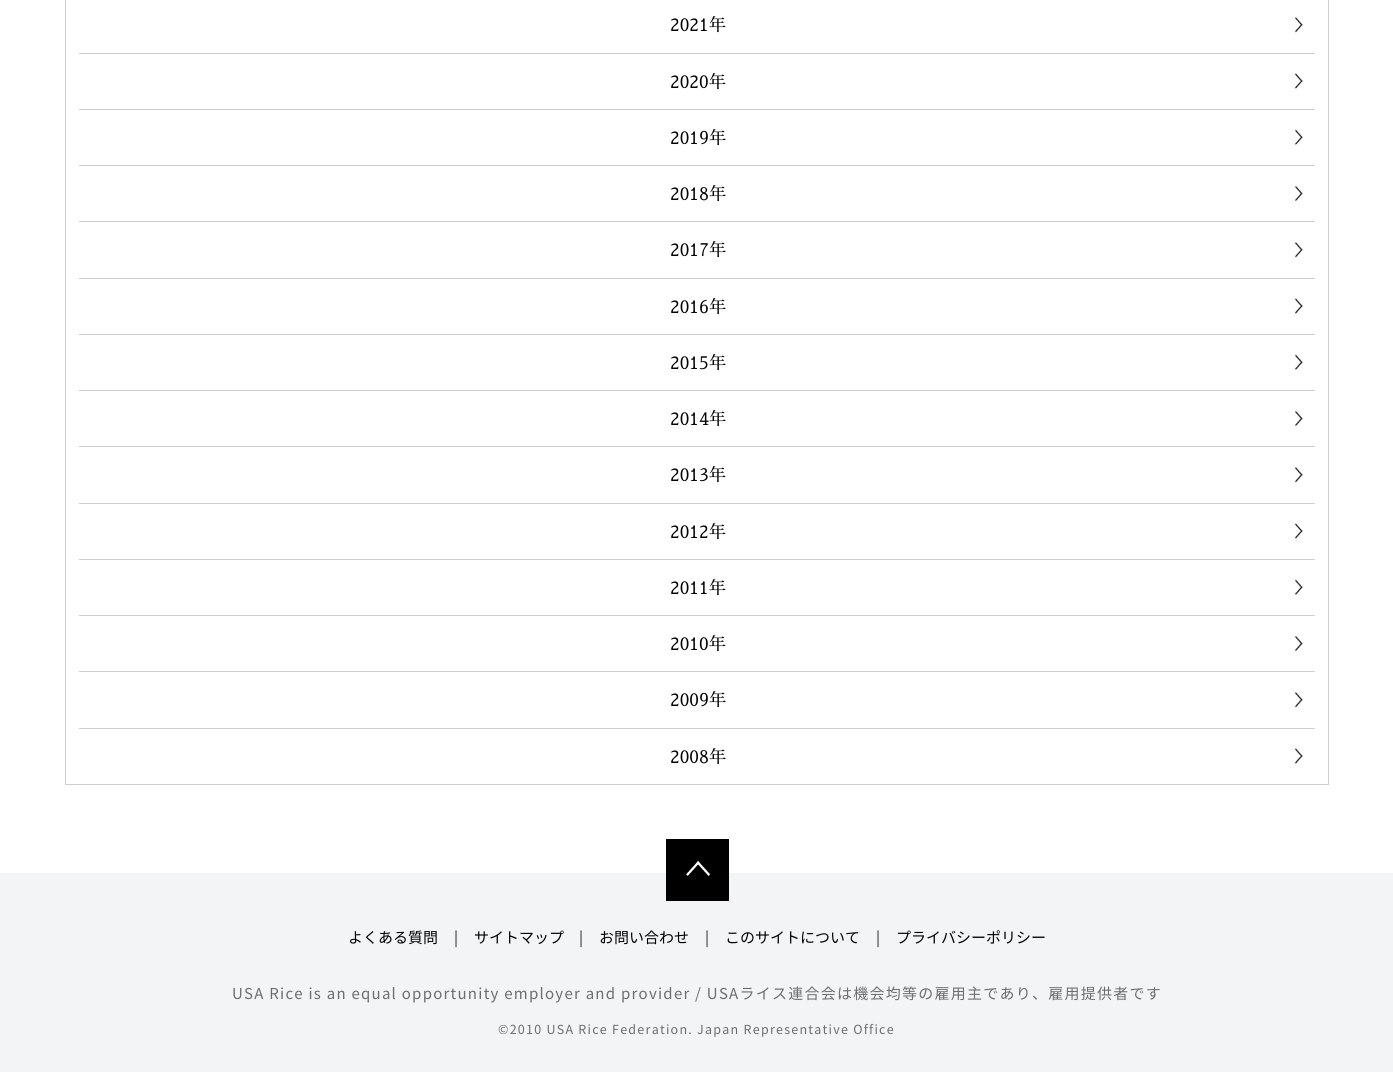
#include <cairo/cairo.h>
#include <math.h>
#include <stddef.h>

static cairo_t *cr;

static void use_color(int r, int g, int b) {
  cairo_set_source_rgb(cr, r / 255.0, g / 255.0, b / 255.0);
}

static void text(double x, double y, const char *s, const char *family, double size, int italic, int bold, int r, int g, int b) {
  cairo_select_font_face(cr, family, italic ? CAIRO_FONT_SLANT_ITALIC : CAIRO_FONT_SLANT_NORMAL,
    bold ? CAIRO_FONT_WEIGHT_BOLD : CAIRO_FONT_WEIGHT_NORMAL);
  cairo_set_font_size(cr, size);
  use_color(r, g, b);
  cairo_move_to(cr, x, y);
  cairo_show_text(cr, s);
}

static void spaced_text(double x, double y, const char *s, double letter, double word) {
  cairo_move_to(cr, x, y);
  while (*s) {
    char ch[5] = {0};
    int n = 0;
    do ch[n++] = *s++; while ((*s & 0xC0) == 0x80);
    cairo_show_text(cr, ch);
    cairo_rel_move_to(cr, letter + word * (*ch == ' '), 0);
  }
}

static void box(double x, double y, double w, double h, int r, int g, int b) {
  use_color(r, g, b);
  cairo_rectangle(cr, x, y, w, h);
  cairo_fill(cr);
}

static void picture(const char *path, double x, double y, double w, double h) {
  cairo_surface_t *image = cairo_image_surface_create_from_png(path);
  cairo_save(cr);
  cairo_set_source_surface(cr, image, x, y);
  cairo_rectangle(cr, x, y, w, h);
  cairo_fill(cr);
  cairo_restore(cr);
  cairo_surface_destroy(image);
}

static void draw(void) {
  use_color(255, 255, 255);
  cairo_paint(cr);
  cairo_rectangle(cr, 65.5, -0.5, 1263, 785);
  use_color(207, 207, 207);
  cairo_set_line_width(cr, 1);
  cairo_stroke(cr);
  box(79, 53, 1236, 1, 207, 207, 207);
  picture("img_01.png", 1295, 17, 8, 16);
  box(79, 109, 1236, 1, 207, 207, 207);
  picture("img_02.png", 1295, 73, 8, 16);
  box(79, 165, 1236, 1, 207, 207, 207);
  picture("img_03.png", 1295, 129, 8, 16);
  box(79, 221, 1236, 1, 207, 207, 207);
  picture("img_04.png", 1295, 186, 8, 15);
  box(79, 278, 1236, 1, 207, 207, 207);
  picture("img_01.png", 1295, 242, 8, 16);
  box(79, 334, 1236, 1, 207, 207, 207);
  picture("img_02.png", 1295, 298, 8, 16);
  box(79, 390, 1236, 1, 207, 207, 207);
  picture("img_03.png", 1295, 354, 8, 16);
  box(79, 446, 1236, 1, 207, 207, 207);
  picture("img_04.png", 1295, 411, 8, 15);
  box(79, 503, 1236, 1, 207, 207, 207);
  picture("img_01.png", 1295, 467, 8, 16);
  box(79, 559, 1236, 1, 207, 207, 207);
  picture("img_02.png", 1295, 523, 8, 16);
  box(79, 615, 1236, 1, 207, 207, 207);
  picture("img_03.png", 1295, 579, 8, 16);
  box(79, 671, 1236, 1, 207, 207, 207);
  picture("img_04.png", 1295, 636, 8, 15);
  box(79, 728, 1236, 1, 207, 207, 207);
  picture("img_01.png", 1295, 692, 8, 16);
  picture("img_02.png", 1295, 748, 8, 16);
  box(0, 873, 1393, 199, 242, 244, 245);
  box(666, 839, 63, 62, 0, 0, 0);
  picture("img_05.png", 686, 861, 24, 15);
  text(670, 31, "2021年", "Sawarabi Mincho", 17.5, 0, 0, 0, 0, 0);
  text(670, 88, "2020年", "Sawarabi Mincho", 17.5, 0, 0, 0, 0, 0);
  text(670, 144, "2019年", "Sawarabi Mincho", 17.5, 0, 0, 0, 0, 0);
  text(670, 200, "2018年", "Sawarabi Mincho", 17.5, 0, 0, 0, 0, 0);
  text(670, 256, "2017年", "Sawarabi Mincho", 17.5, 0, 0, 0, 0, 0);
  text(670, 313, "2016年", "Sawarabi Mincho", 17.5, 0, 0, 0, 0, 0);
  text(670, 369, "2015年", "Sawarabi Mincho", 17.5, 0, 0, 0, 0, 0);
  text(670, 425, "2014年", "Sawarabi Mincho", 17.5, 0, 0, 0, 0, 0);
  text(670, 481, "2013年", "Sawarabi Mincho", 17.5, 0, 0, 0, 0, 0);
  text(670, 538, "2012年", "Sawarabi Mincho", 17.5, 0, 0, 0, 0, 0);
  text(670, 594, "2011年", "Sawarabi Mincho", 17.5, 0, 0, 0, 0, 0);
  text(670, 650, "2010年", "Sawarabi Mincho", 17.5, 0, 0, 0, 0, 0);
  text(670, 706, "2009年", "Sawarabi Mincho", 17.5, 0, 0, 0, 0, 0);
  text(670, 763, "2008年", "Sawarabi Mincho", 17.5, 0, 0, 0, 0, 0);
  text(348, 943, "よくある質問", "Noto Sans JP", 15, 0, 0, 0, 0, 0);
  text(454, 943, "|", "Noto Sans JP", 15, 0, 0, 36, 36, 36);
  text(474, 943, "サイトマップ", "Noto Sans JP", 15, 0, 0, 0, 0, 0);
  text(579, 943, "|", "Noto Sans JP", 15, 0, 0, 36, 36, 36);
  text(599, 943, "お問い合わせ", "Noto Sans JP", 15, 0, 0, 0, 0, 0);
  text(705, 943, "|", "Noto Sans JP", 15, 0, 0, 36, 36, 36);
  text(725, 943, "このサイトについて", "Noto Sans JP", 15, 0, 0, 0, 0, 0);
  text(876, 943, "|", "Noto Sans JP", 15, 0, 0, 36, 36, 36);
  text(896, 943, "プライバシーポリシー", "Noto Sans JP", 15, 0, 0, 0, 0, 0);
  use_color(109, 109, 109);
  spaced_text(232, 999, "USA Rice is an equal opportunity employer and provider / USAライス連合会は機会均等の雇用主であり、雇用提供者です", 1.25, 0);
  cairo_set_font_size(cr, 12.5);
  spaced_text(498, 1034, "©2010 USA Rice Federation. Japan Representative Office", 1.25, 0);
}

int main(void) {
  cairo_surface_t *surface = cairo_image_surface_create(CAIRO_FORMAT_RGB24, 1393, 1072);
  cr = cairo_create(surface);
  cairo_font_options_t *options = cairo_font_options_create();
  cairo_font_options_set_hint_metrics(options, CAIRO_HINT_METRICS_OFF);
  cairo_font_options_set_hint_style(options, CAIRO_HINT_STYLE_NONE);
  cairo_set_font_options(cr, options);
  cairo_set_miter_limit(cr, 4);
  draw();
  cairo_surface_write_to_png(surface, "out.png");
  cairo_font_options_destroy(options);
  cairo_destroy(cr);
  cairo_surface_destroy(surface);
  return 0;
}
